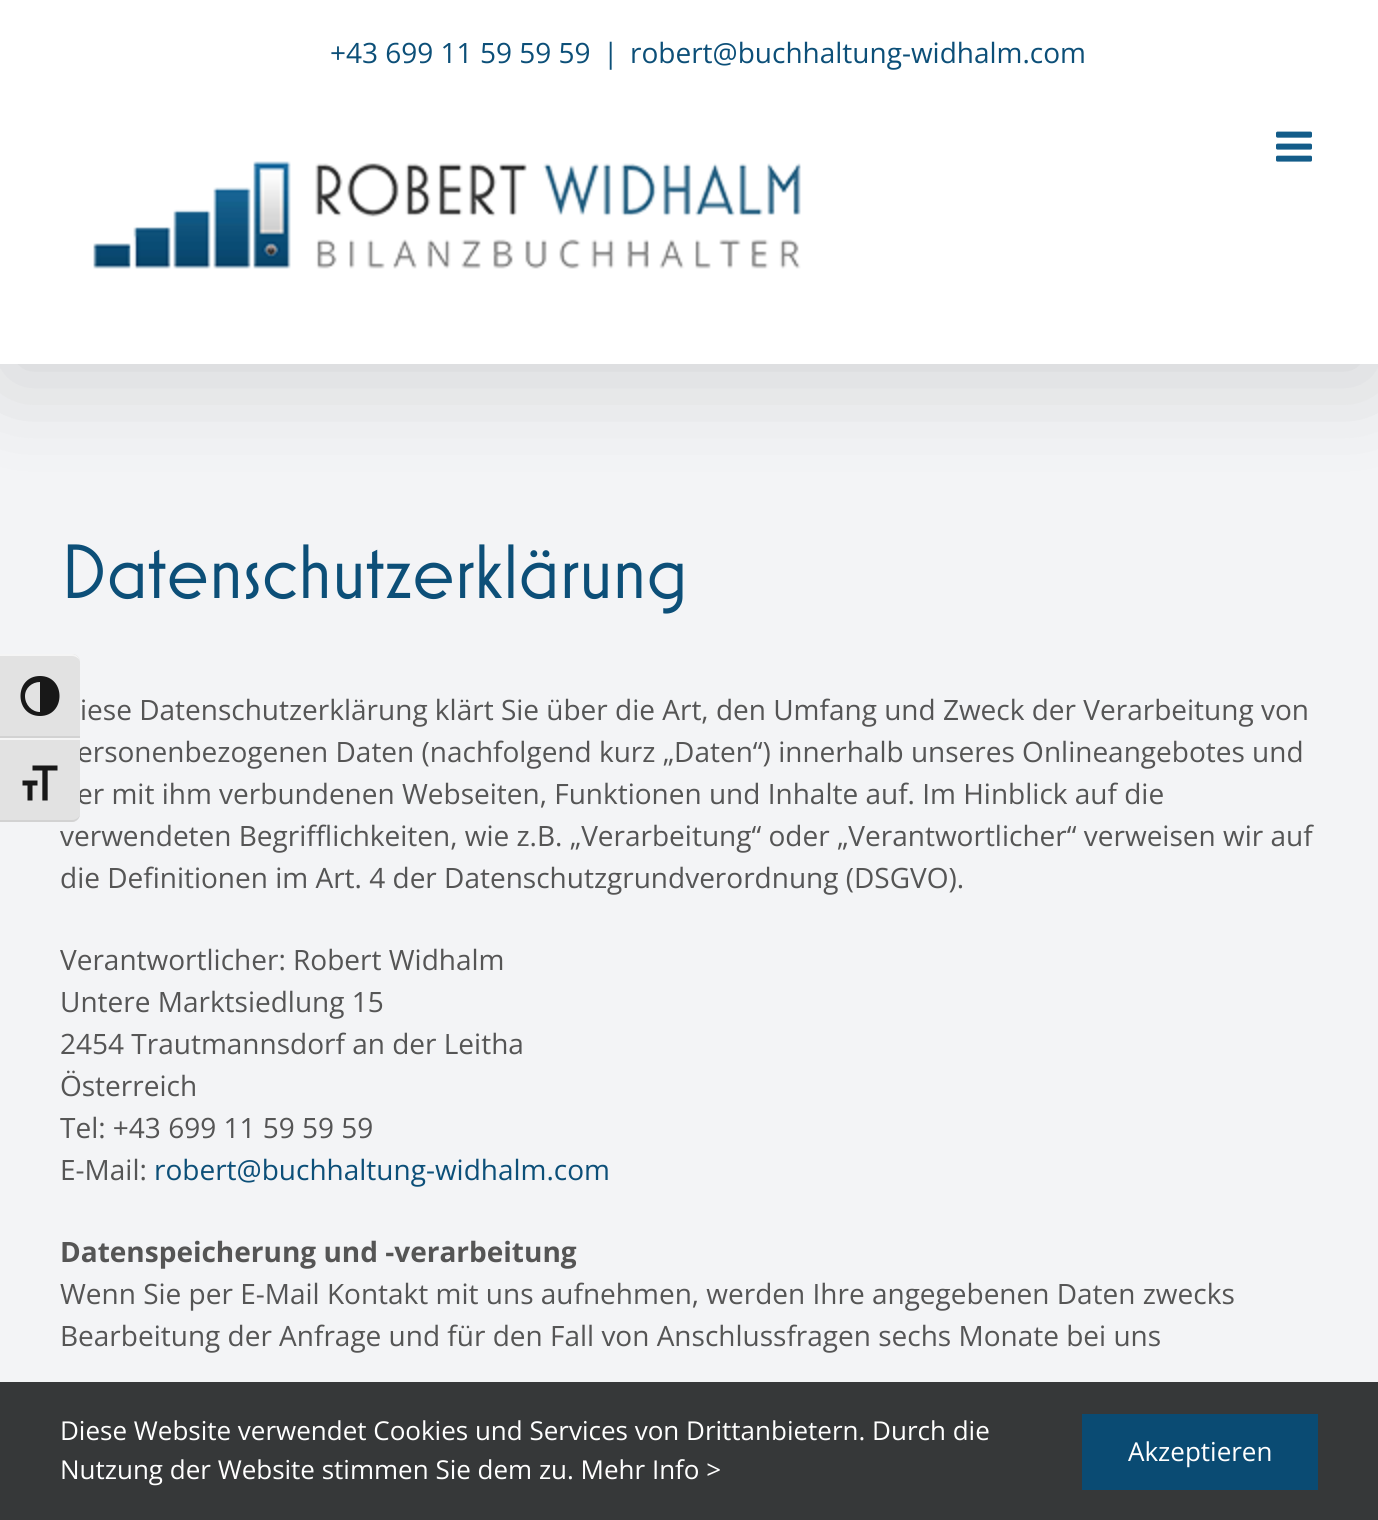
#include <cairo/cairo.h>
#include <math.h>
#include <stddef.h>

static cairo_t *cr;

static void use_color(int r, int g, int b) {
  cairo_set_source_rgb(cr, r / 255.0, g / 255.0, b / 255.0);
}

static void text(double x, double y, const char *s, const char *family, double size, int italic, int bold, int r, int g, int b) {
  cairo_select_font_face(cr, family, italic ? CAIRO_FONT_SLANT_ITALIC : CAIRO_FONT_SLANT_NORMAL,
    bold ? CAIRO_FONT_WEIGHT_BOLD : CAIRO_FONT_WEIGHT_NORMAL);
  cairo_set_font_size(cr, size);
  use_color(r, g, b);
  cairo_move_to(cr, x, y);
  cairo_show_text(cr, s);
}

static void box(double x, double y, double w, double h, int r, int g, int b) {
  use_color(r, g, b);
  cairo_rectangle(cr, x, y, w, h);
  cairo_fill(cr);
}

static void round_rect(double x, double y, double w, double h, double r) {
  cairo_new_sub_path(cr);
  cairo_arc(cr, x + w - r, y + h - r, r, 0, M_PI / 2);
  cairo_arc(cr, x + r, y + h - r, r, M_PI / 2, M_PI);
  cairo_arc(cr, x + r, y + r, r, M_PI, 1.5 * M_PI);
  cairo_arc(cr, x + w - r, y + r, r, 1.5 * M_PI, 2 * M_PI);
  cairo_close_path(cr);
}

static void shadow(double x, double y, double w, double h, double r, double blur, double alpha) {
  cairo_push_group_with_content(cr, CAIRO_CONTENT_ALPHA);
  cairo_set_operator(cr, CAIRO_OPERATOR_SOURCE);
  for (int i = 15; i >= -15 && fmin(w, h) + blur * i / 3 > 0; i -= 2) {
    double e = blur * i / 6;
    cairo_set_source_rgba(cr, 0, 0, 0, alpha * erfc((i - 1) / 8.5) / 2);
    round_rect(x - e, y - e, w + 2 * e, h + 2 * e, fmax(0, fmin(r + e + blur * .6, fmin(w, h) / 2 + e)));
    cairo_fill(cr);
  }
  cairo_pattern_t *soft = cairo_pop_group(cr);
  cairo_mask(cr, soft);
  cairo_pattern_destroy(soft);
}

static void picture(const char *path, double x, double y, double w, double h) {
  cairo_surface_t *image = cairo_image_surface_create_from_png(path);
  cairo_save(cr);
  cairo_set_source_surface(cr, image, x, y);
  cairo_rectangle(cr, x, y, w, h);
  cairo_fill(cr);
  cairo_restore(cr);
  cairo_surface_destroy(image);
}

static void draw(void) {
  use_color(243, 244, 246);
  cairo_paint(cr);
  use_color(226, 226, 226);
  cairo_new_path(cr);
  cairo_move_to(cr, 0, 654);
  cairo_line_to(cr, 72, 654);
  cairo_curve_to(cr, 76.5, 654, 80, 657.5, 80, 662);
  cairo_line_to(cr, 80, 738);
  cairo_line_to(cr, 0, 738);
  cairo_close_path(cr);
  cairo_fill(cr);
  use_color(245, 245, 245);
  cairo_new_path(cr);
  cairo_move_to(cr, 0, 654);
  cairo_line_to(cr, 0, 656);
  cairo_line_to(cr, 72, 656);
  cairo_curve_to(cr, 76, 656, 80, 659, 80, 662);
  cairo_curve_to(cr, 80, 658, 76, 654, 72, 654);
  cairo_close_path(cr);
  cairo_fill(cr);
  box(0, 736, 80, 2, 210, 210, 210);
  use_color(24, 24, 24);
  cairo_new_path(cr);
  cairo_move_to(cr, 40, 676);
  cairo_curve_to(cr, 14, 676, 14, 716, 40, 716);
  cairo_curve_to(cr, 66, 716, 66, 676, 40, 676);
  cairo_close_path(cr);
  cairo_move_to(cr, 25, 696);
  cairo_curve_to(cr, 25, 688, 32, 682, 40, 682);
  cairo_line_to(cr, 40, 712);
  cairo_curve_to(cr, 32, 712, 25, 705, 25, 696);
  cairo_close_path(cr);
  cairo_fill(cr);
  use_color(0, 0, 0);
  shadow(4, 24, 1370, 356, 0, 50, 0.14);
  box(0, 0, 1378, 364, 255, 255, 255);
  picture("img_02.png", 1276, 131, 36, 31);
  picture("img_03.png", 93, 161, 708, 108);
  box(0, 1382, 1378, 138, 54, 56, 57);
  box(1082, 1414, 236, 76, 10, 75, 115);
  text(330, 63, "+43 699 11 59 59 59", "Open Sans", 28, 0, 0, 12, 79, 120);
  text(603, 63, "|", "Open Sans", 28, 0, 0, 12, 79, 120);
  text(630, 63, "robert@buchhaltung-widhalm.com", "Open Sans", 28, 0, 0, 12, 79, 120);
  text(60, 598, "Datenschutzerklärung", "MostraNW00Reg", 78.25, 0, 0, 12, 79, 120);
  text(80, 720, "iese Datenschutzerklärung klärt Sie über die Art, den Umfang und Zweck der Verarbeitung von", "Open Sans", 28, 0, 0, 85, 85, 85);
  text(77, 762, "ersonenbezogenen Daten (nachfolgend kurz „Daten“) innerhalb unseres Onlineangebotes und", "Open Sans", 28, 0, 0, 85, 85, 85);
  text(77, 804, "er mit ihm verbundenen Webseiten, Funktionen und Inhalte auf. Im Hinblick auf die", "Open Sans", 28, 0, 0, 85, 85, 85);
  use_color(226, 226, 226);
  cairo_new_path(cr);
  cairo_move_to(cr, 0, 738);
  cairo_line_to(cr, 80, 738);
  cairo_line_to(cr, 80, 814);
  cairo_curve_to(cr, 80, 818.5, 76.5, 822, 72, 822);
  cairo_line_to(cr, 0, 822);
  cairo_close_path(cr);
  cairo_fill(cr);
  picture("img_01.png", 22, 765, 36, 36);
  use_color(210, 210, 210);
  cairo_new_path(cr);
  cairo_move_to(cr, 0, 820);
  cairo_line_to(cr, 0, 822);
  cairo_line_to(cr, 72, 822);
  cairo_curve_to(cr, 76, 822, 80, 818, 80, 814);
  cairo_curve_to(cr, 80, 817, 76, 820, 72, 820);
  cairo_close_path(cr);
  cairo_fill(cr);
  box(0, 738, 80, 2, 245, 245, 245);
  text(60, 846, "verwendeten Begrifflichkeiten, wie z.B. „Verarbeitung“ oder „Verantwortlicher“ verweisen wir auf", "Open Sans", 28, 0, 0, 85, 85, 85);
  text(60, 888, "die Definitionen im Art. 4 der Datenschutzgrundverordnung (DSGVO).", "Open Sans", 28, 0, 0, 85, 85, 85);
  text(60, 970, "Verantwortlicher: Robert Widhalm", "Open Sans", 28, 0, 0, 85, 85, 85);
  text(60, 1012, "Untere Marktsiedlung 15", "Open Sans", 28, 0, 0, 85, 85, 85);
  text(60, 1054, "2454 Trautmannsdorf an der Leitha", "Open Sans", 28, 0, 0, 85, 85, 85);
  text(60, 1096, "Österreich", "Open Sans", 28, 0, 0, 85, 85, 85);
  text(60, 1138, "Tel: +43 699 11 59 59 59", "Open Sans", 28, 0, 0, 85, 85, 85);
  text(60, 1180, "E-Mail:", "Open Sans", 28, 0, 0, 85, 85, 85);
  text(154, 1180, "robert@buchhaltung-widhalm.com", "Open Sans", 28, 0, 0, 12, 79, 120);
  text(60, 1262, "Datenspeicherung und -verarbeitung", "Open Sans", 28, 0, 1, 85, 85, 85);
  text(60, 1304, "Wenn Sie per E-Mail Kontakt mit uns aufnehmen, werden Ihre angegebenen Daten zwecks", "Open Sans", 28, 0, 0, 85, 85, 85);
  text(60, 1346, "Bearbeitung der Anfrage und für den Fall von Anschlussfragen sechs Monate bei uns", "Open Sans", 28, 0, 0, 85, 85, 85);
  text(60, 1440, "Diese Website verwendet Cookies und Services von Drittanbietern. Durch die", "Open Sans", 26, 0, 0, 255, 255, 255);
  text(60, 1479, "Nutzung der Website stimmen Sie dem zu. Mehr Info >", "Open Sans", 26, 0, 0, 255, 255, 255);
  text(1128, 1461, "Akzeptieren", "Open Sans", 26, 0, 0, 255, 255, 255);
}

int main(void) {
  cairo_surface_t *surface = cairo_image_surface_create(CAIRO_FORMAT_RGB24, 1378, 1520);
  cr = cairo_create(surface);
  cairo_font_options_t *options = cairo_font_options_create();
  cairo_font_options_set_hint_metrics(options, CAIRO_HINT_METRICS_OFF);
  cairo_font_options_set_hint_style(options, CAIRO_HINT_STYLE_NONE);
  cairo_set_font_options(cr, options);
  cairo_set_miter_limit(cr, 4);
  draw();
  cairo_surface_write_to_png(surface, "out.png");
  cairo_font_options_destroy(options);
  cairo_destroy(cr);
  cairo_surface_destroy(surface);
  return 0;
}
